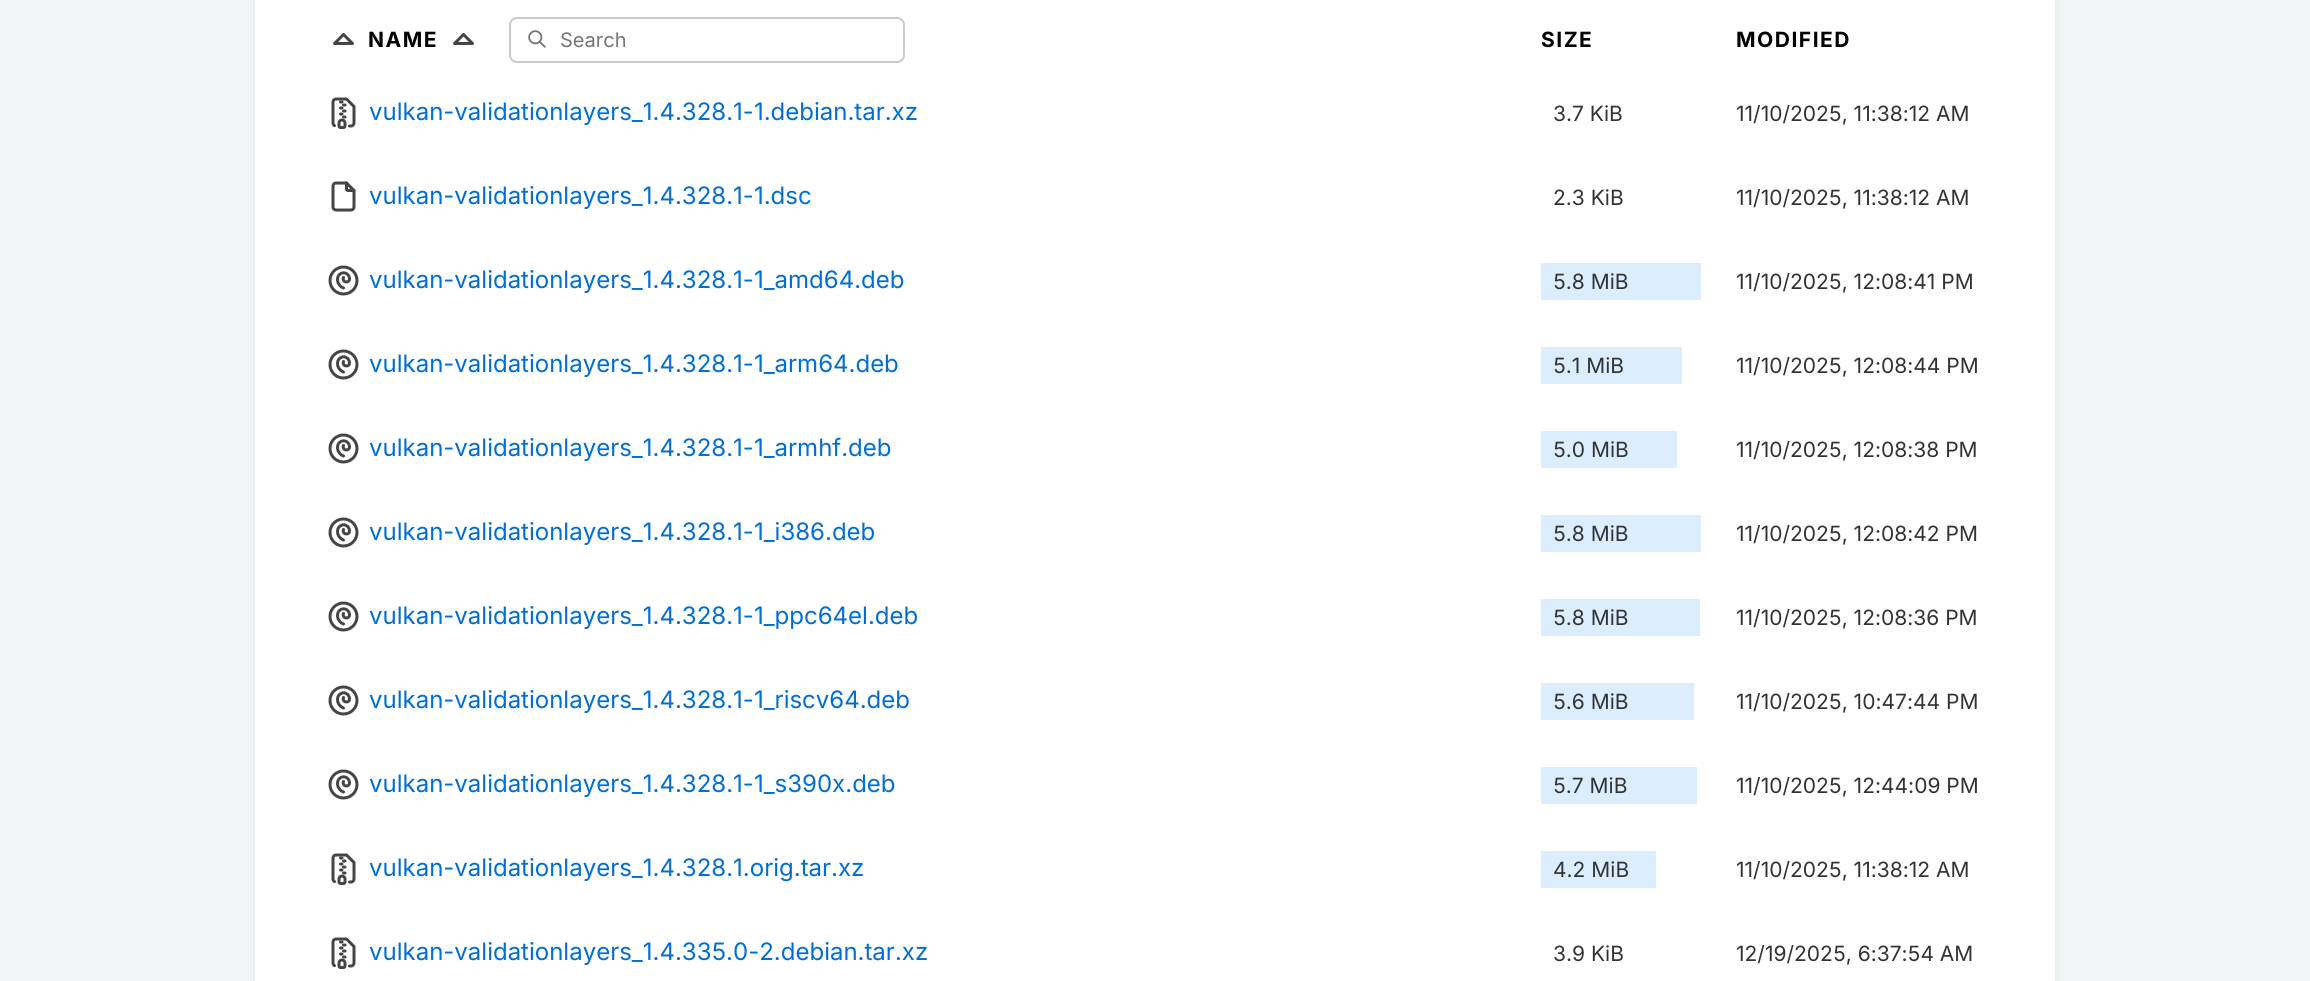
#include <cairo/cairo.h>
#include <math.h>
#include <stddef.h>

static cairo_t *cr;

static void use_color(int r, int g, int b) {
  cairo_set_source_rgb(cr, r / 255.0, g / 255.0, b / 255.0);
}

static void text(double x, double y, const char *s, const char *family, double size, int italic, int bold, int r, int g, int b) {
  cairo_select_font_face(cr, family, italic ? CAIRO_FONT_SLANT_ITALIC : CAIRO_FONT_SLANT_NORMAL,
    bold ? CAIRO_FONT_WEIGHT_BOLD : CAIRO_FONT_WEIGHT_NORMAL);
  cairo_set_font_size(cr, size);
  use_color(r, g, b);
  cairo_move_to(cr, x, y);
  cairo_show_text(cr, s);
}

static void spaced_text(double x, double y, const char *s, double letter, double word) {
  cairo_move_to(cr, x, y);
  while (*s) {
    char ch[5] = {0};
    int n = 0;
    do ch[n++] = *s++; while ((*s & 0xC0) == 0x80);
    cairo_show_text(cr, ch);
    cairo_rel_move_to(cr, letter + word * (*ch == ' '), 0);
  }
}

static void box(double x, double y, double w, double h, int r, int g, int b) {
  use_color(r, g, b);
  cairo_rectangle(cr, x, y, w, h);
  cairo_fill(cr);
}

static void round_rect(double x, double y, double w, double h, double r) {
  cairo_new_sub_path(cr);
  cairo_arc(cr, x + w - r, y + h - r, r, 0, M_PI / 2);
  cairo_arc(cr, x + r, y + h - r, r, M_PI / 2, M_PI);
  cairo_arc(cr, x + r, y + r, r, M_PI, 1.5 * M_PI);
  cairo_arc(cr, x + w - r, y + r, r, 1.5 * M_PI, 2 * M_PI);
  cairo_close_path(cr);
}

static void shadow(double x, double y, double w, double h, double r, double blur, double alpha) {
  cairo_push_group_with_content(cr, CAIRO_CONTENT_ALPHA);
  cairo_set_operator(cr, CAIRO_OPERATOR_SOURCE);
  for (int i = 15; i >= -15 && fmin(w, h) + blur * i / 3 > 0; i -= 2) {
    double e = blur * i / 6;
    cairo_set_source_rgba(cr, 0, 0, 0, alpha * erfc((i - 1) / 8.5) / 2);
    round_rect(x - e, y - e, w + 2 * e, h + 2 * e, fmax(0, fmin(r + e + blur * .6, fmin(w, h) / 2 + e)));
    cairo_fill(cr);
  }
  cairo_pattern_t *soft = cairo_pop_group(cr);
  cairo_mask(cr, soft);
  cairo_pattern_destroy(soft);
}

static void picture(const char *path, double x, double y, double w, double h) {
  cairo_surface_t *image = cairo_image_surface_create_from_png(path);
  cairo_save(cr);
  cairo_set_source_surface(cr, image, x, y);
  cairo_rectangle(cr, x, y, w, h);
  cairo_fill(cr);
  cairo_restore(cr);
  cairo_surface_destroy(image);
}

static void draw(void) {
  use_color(243, 246, 247);
  cairo_paint(cr);
  use_color(0, 0, 0);
  shadow(254, -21, 1803, 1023, 9, 4, 0.05);
  box(255, 0, 1800, 981, 255, 255, 255);
  cairo_new_path(cr);
  cairo_move_to(cr, 352.5, 43.5);
  cairo_line_to(cr, 343.5, 34.5);
  cairo_line_to(cr, 334.5, 43.5);
  cairo_line_to(cr, 352.5, 43.5);
  use_color(69, 69, 69);
  cairo_set_line_width(cr, 3);
  cairo_set_line_cap(cr, CAIRO_LINE_CAP_ROUND);
  cairo_set_line_join(cr, CAIRO_LINE_JOIN_ROUND);
  cairo_stroke(cr);
  cairo_new_path(cr);
  cairo_move_to(cr, 472.5, 43.5);
  cairo_line_to(cr, 463.5, 34.5);
  cairo_line_to(cr, 454.5, 43.5);
  cairo_line_to(cr, 472.5, 43.5);
  cairo_stroke(cr);
  picture("img_01.png", 528, 30, 18, 18);
  round_rect(510, 18, 394, 44, 7);
  use_color(204, 204, 204);
  cairo_set_line_width(cr, 2);
  cairo_set_line_cap(cr, CAIRO_LINE_CAP_BUTT);
  cairo_set_line_join(cr, CAIRO_LINE_JOIN_MITER);
  cairo_stroke(cr);
  picture("img_02.png", 331, 97, 25, 32);
  picture("img_03.png", 331, 181, 25, 31);
  picture("img_04.png", 328, 265, 31, 31);
  box(1541, 263, 160, 37, 219, 238, 255);
  picture("img_04.png", 328, 349, 31, 31);
  box(1541, 347, 141, 37, 219, 238, 255);
  picture("img_04.png", 328, 433, 31, 31);
  box(1541, 431, 136, 37, 219, 238, 255);
  picture("img_04.png", 328, 517, 31, 31);
  box(1541, 515, 160, 37, 219, 238, 255);
  picture("img_04.png", 328, 601, 31, 31);
  box(1541, 599, 159, 37, 219, 238, 255);
  picture("img_04.png", 328, 685, 31, 31);
  box(1541, 683, 153, 37, 219, 238, 255);
  picture("img_04.png", 328, 769, 31, 31);
  box(1541, 767, 156, 37, 219, 238, 255);
  picture("img_02.png", 331, 853, 25, 32);
  box(1541, 851, 115, 37, 219, 238, 255);
  picture("img_02.png", 331, 937, 25, 32);
  cairo_select_font_face(cr, "Inter", CAIRO_FONT_SLANT_NORMAL, CAIRO_FONT_WEIGHT_BOLD);
  cairo_set_font_size(cr, 21);
  use_color(0, 0, 0);
  spaced_text(368, 47, "NAME", 1.5, 0);
  text(560, 47, "Search", "Inter", 20, 0, 0, 117, 117, 117);
  cairo_select_font_face(cr, "Inter", CAIRO_FONT_SLANT_NORMAL, CAIRO_FONT_WEIGHT_BOLD);
  cairo_set_font_size(cr, 21);
  use_color(0, 0, 0);
  spaced_text(1541, 47, "SIZE", 1.5, 0);
  spaced_text(1736, 47, "MODIFIED", 1.5, 0);
  text(369, 120, "vulkan-validationlayers_1.4.328.1-1.debian.tar.xz", "Inter", 24, 0, 0, 0, 110, 211);
  text(1553, 121, "3.7 KiB", "Inter", 21, 0, 0, 51, 51, 51);
  text(1736, 121, "11/10/2025, 11:38:12 AM", "Inter", 21, 0, 0, 51, 51, 51);
  text(369, 204, "vulkan-validationlayers_1.4.328.1-1.dsc", "Inter", 24, 0, 0, 0, 110, 211);
  text(1553, 205, "2.3 KiB", "Inter", 21, 0, 0, 51, 51, 51);
  text(1736, 205, "11/10/2025, 11:38:12 AM", "Inter", 21, 0, 0, 51, 51, 51);
  text(369, 288, "vulkan-validationlayers_1.4.328.1-1_amd64.deb", "Inter", 24, 0, 0, 0, 110, 211);
  text(1553, 289, "5.8 MiB", "Inter", 21, 0, 0, 51, 51, 51);
  text(1736, 289, "11/10/2025, 12:08:41 PM", "Inter", 21, 0, 0, 51, 51, 51);
  text(369, 372, "vulkan-validationlayers_1.4.328.1-1_arm64.deb", "Inter", 24, 0, 0, 0, 110, 211);
  text(1553, 373, "5.1 MiB", "Inter", 21, 0, 0, 51, 51, 51);
  text(1736, 373, "11/10/2025, 12:08:44 PM", "Inter", 21, 0, 0, 51, 51, 51);
  text(369, 456, "vulkan-validationlayers_1.4.328.1-1_armhf.deb", "Inter", 24, 0, 0, 0, 110, 211);
  text(1553, 457, "5.0 MiB", "Inter", 21, 0, 0, 51, 51, 51);
  text(1736, 457, "11/10/2025, 12:08:38 PM", "Inter", 21, 0, 0, 51, 51, 51);
  text(369, 540, "vulkan-validationlayers_1.4.328.1-1_i386.deb", "Inter", 24, 0, 0, 0, 110, 211);
  text(1553, 541, "5.8 MiB", "Inter", 21, 0, 0, 51, 51, 51);
  text(1736, 541, "11/10/2025, 12:08:42 PM", "Inter", 21, 0, 0, 51, 51, 51);
  text(369, 624, "vulkan-validationlayers_1.4.328.1-1_ppc64el.deb", "Inter", 24, 0, 0, 0, 110, 211);
  text(1553, 625, "5.8 MiB", "Inter", 21, 0, 0, 51, 51, 51);
  text(1736, 625, "11/10/2025, 12:08:36 PM", "Inter", 21, 0, 0, 51, 51, 51);
  text(369, 708, "vulkan-validationlayers_1.4.328.1-1_riscv64.deb", "Inter", 24, 0, 0, 0, 110, 211);
  text(1553, 709, "5.6 MiB", "Inter", 21, 0, 0, 51, 51, 51);
  text(1736, 709, "11/10/2025, 10:47:44 PM", "Inter", 21, 0, 0, 51, 51, 51);
  text(369, 792, "vulkan-validationlayers_1.4.328.1-1_s390x.deb", "Inter", 24, 0, 0, 0, 110, 211);
  text(1553, 793, "5.7 MiB", "Inter", 21, 0, 0, 51, 51, 51);
  text(1736, 793, "11/10/2025, 12:44:09 PM", "Inter", 21, 0, 0, 51, 51, 51);
  text(369, 876, "vulkan-validationlayers_1.4.328.1.orig.tar.xz", "Inter", 24, 0, 0, 0, 110, 211);
  text(1553, 877, "4.2 MiB", "Inter", 21, 0, 0, 51, 51, 51);
  text(1736, 877, "11/10/2025, 11:38:12 AM", "Inter", 21, 0, 0, 51, 51, 51);
  text(369, 960, "vulkan-validationlayers_1.4.335.0-2.debian.tar.xz", "Inter", 24, 0, 0, 0, 110, 211);
  text(1553, 961, "3.9 KiB", "Inter", 21, 0, 0, 51, 51, 51);
  text(1736, 961, "12/19/2025, 6:37:54 AM", "Inter", 21, 0, 0, 51, 51, 51);
}

int main(void) {
  cairo_surface_t *surface = cairo_image_surface_create(CAIRO_FORMAT_RGB24, 2310, 981);
  cr = cairo_create(surface);
  cairo_font_options_t *options = cairo_font_options_create();
  cairo_font_options_set_hint_metrics(options, CAIRO_HINT_METRICS_OFF);
  cairo_font_options_set_hint_style(options, CAIRO_HINT_STYLE_NONE);
  cairo_set_font_options(cr, options);
  cairo_set_miter_limit(cr, 4);
  draw();
  cairo_surface_write_to_png(surface, "out.png");
  cairo_font_options_destroy(options);
  cairo_destroy(cr);
  cairo_surface_destroy(surface);
  return 0;
}
